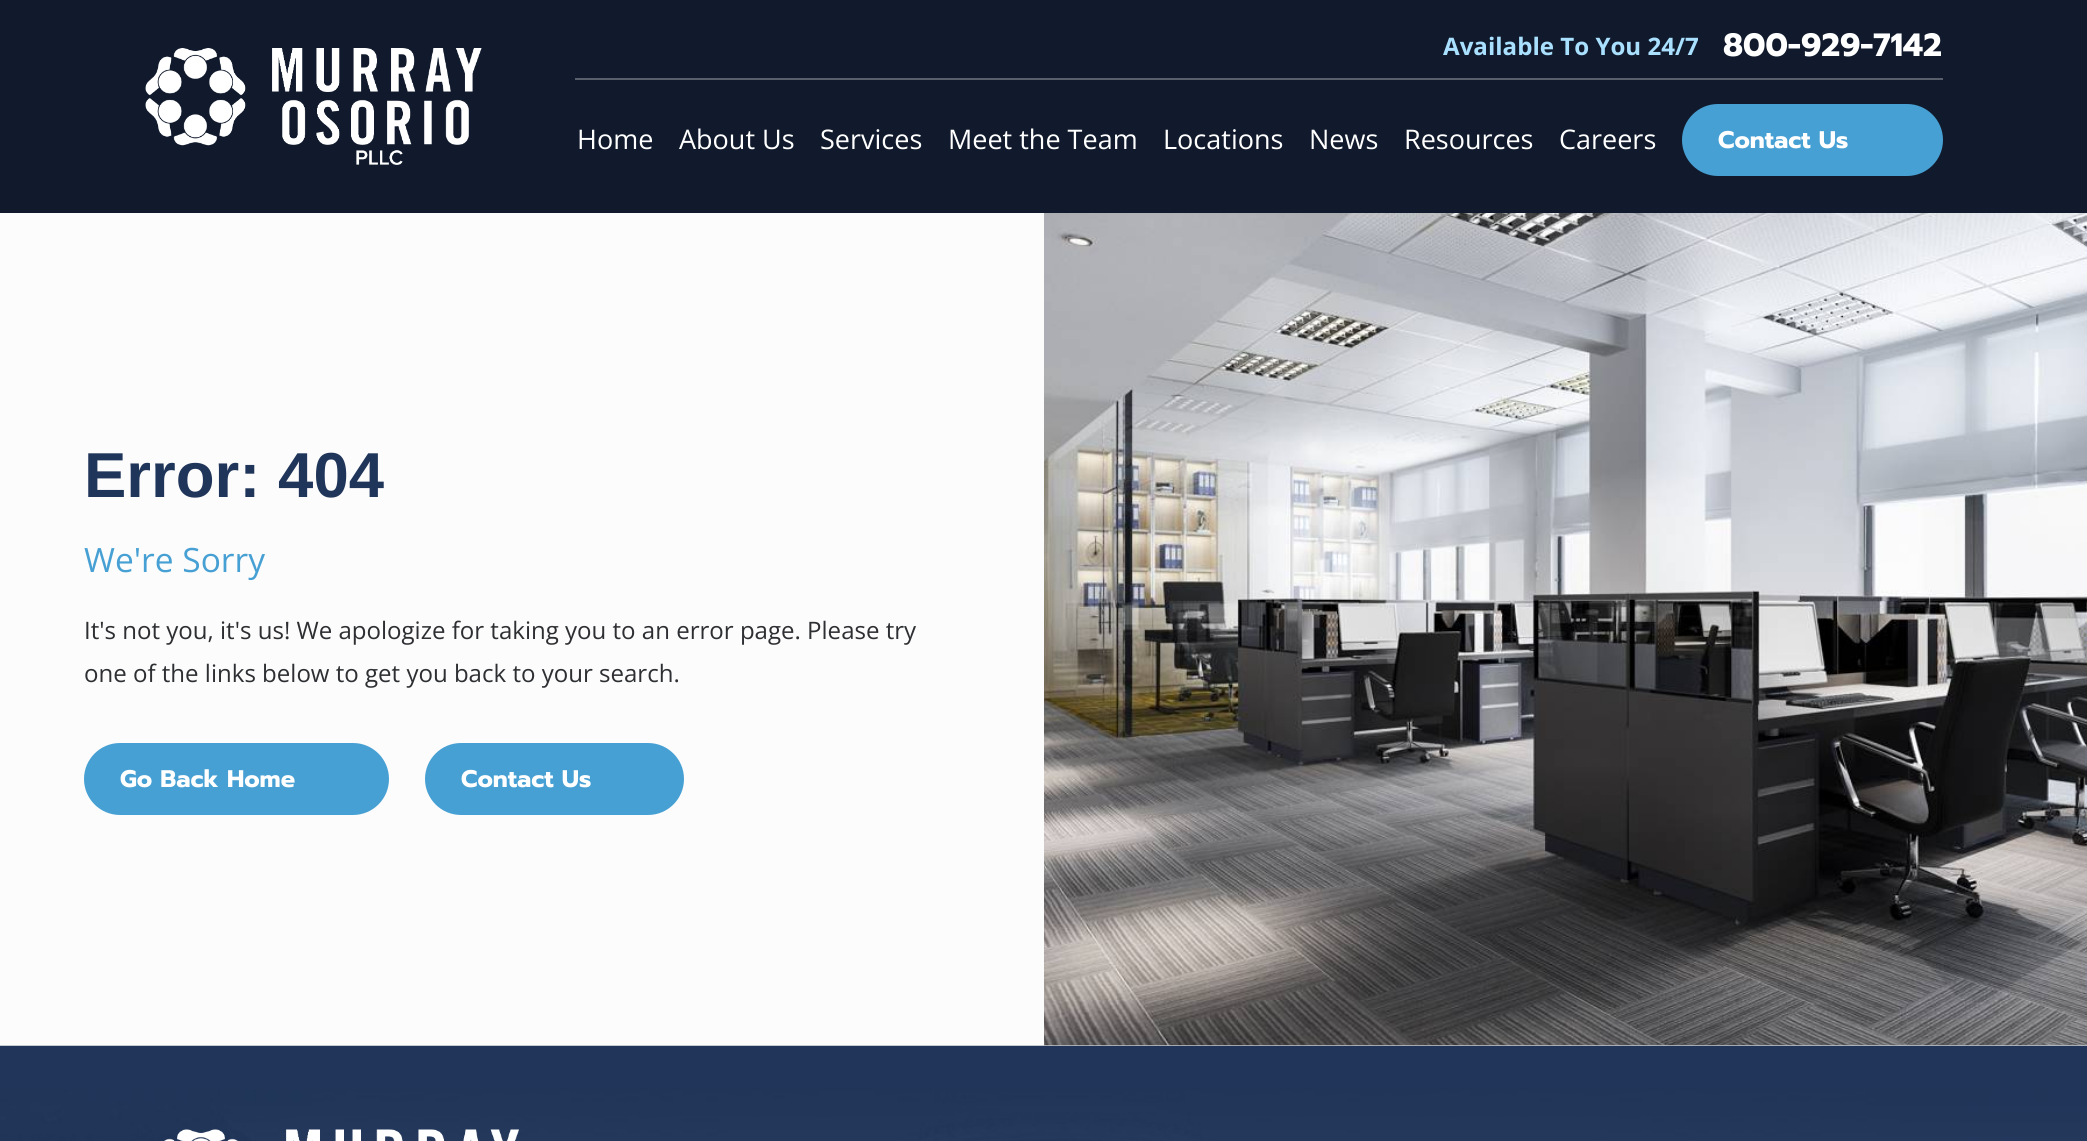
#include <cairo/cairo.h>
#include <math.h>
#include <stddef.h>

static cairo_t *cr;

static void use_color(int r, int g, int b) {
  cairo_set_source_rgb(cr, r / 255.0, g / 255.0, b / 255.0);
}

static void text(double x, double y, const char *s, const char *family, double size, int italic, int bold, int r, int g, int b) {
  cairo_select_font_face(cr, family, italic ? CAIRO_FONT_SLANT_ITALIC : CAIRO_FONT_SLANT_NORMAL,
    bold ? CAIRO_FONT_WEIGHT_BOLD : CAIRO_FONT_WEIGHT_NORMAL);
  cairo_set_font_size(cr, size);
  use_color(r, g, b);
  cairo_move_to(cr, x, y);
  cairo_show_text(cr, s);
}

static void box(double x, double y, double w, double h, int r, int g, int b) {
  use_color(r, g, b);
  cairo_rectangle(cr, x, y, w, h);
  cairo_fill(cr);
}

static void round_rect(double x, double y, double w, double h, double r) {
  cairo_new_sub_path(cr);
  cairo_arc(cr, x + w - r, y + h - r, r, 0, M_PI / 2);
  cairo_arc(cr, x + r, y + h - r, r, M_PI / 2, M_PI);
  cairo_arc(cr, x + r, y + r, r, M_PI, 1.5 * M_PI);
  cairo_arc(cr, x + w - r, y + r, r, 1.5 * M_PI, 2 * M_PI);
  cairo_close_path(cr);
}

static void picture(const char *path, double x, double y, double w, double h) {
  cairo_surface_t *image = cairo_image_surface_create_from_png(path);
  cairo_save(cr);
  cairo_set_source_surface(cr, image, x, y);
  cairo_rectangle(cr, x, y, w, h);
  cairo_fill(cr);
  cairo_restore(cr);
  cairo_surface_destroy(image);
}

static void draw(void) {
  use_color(252, 252, 252);
  cairo_paint(cr);
  box(0, 0, 2087, 213, 16, 26, 44);
  picture("img_01.png", 145, 48, 337, 117);
  box(575, 78, 1368, 2, 88, 95, 107);
  use_color(71, 160, 211);
  round_rect(1682, 104, 261, 72, 36);
  cairo_fill(cr);
  round_rect(84, 743, 305, 72, 36);
  cairo_fill(cr);
  round_rect(425, 743, 259, 72, 36);
  cairo_fill(cr);
  picture("img_02.png", 1044, 213, 1043, 833);
  picture("img_03.png", 0, 1045, 2087, 96);
  picture("img_04.png", 164, 1129, 355, 12);
  text(1443, 55, "Available To You 24/7", "Open Sans", 24.1, 0, 1, 170, 224, 255);
  text(1723, 56, "800-929-7142", "Prompt", 32.25, 0, 1, 255, 255, 255);
  text(577, 149, "Home", "Open Sans", 27, 0, 0, 255, 255, 255);
  text(679, 149, "About Us", "Open Sans", 27, 0, 0, 255, 255, 255);
  text(820, 149, "Services", "Open Sans", 27, 0, 0, 255, 255, 255);
  text(948, 149, "Meet the Team", "Open Sans", 27, 0, 0, 255, 255, 255);
  text(1163, 149, "Locations", "Open Sans", 27, 0, 0, 255, 255, 255);
  text(1309, 149, "News", "Open Sans", 27, 0, 0, 255, 255, 255);
  text(1404, 149, "Resources", "Open Sans", 27, 0, 0, 255, 255, 255);
  text(1559, 149, "Careers", "Open Sans", 27, 0, 0, 255, 255, 255);
  text(1718, 148, "Contact Us", "Prompt", 24.05, 0, 1, 255, 255, 255);
  text(84, 497, "Error: 404", "Liberation Sans", 63.5, 0, 1, 32, 53, 90);
  text(84, 572, "We're Sorry", "Open Sans", 33.5, 0, 0, 71, 160, 211);
  text(84, 639, "It's not you, it's us! We apologize for taking you to an error page. Please try", "Open Sans", 24.05, 0, 0, 45, 47, 50);
  text(84, 682, "one of the links below to get you back to your search.", "Open Sans", 24.05, 0, 0, 45, 47, 50);
  text(120, 787, "Go Back Home", "Prompt", 24.05, 0, 1, 255, 255, 255);
  text(461, 787, "Contact Us", "Prompt", 24.05, 0, 1, 255, 255, 255);
}

int main(void) {
  cairo_surface_t *surface = cairo_image_surface_create(CAIRO_FORMAT_RGB24, 2087, 1141);
  cr = cairo_create(surface);
  cairo_font_options_t *options = cairo_font_options_create();
  cairo_font_options_set_hint_metrics(options, CAIRO_HINT_METRICS_OFF);
  cairo_font_options_set_hint_style(options, CAIRO_HINT_STYLE_NONE);
  cairo_set_font_options(cr, options);
  cairo_set_miter_limit(cr, 4);
  draw();
  cairo_surface_write_to_png(surface, "out.png");
  cairo_font_options_destroy(options);
  cairo_destroy(cr);
  cairo_surface_destroy(surface);
  return 0;
}
